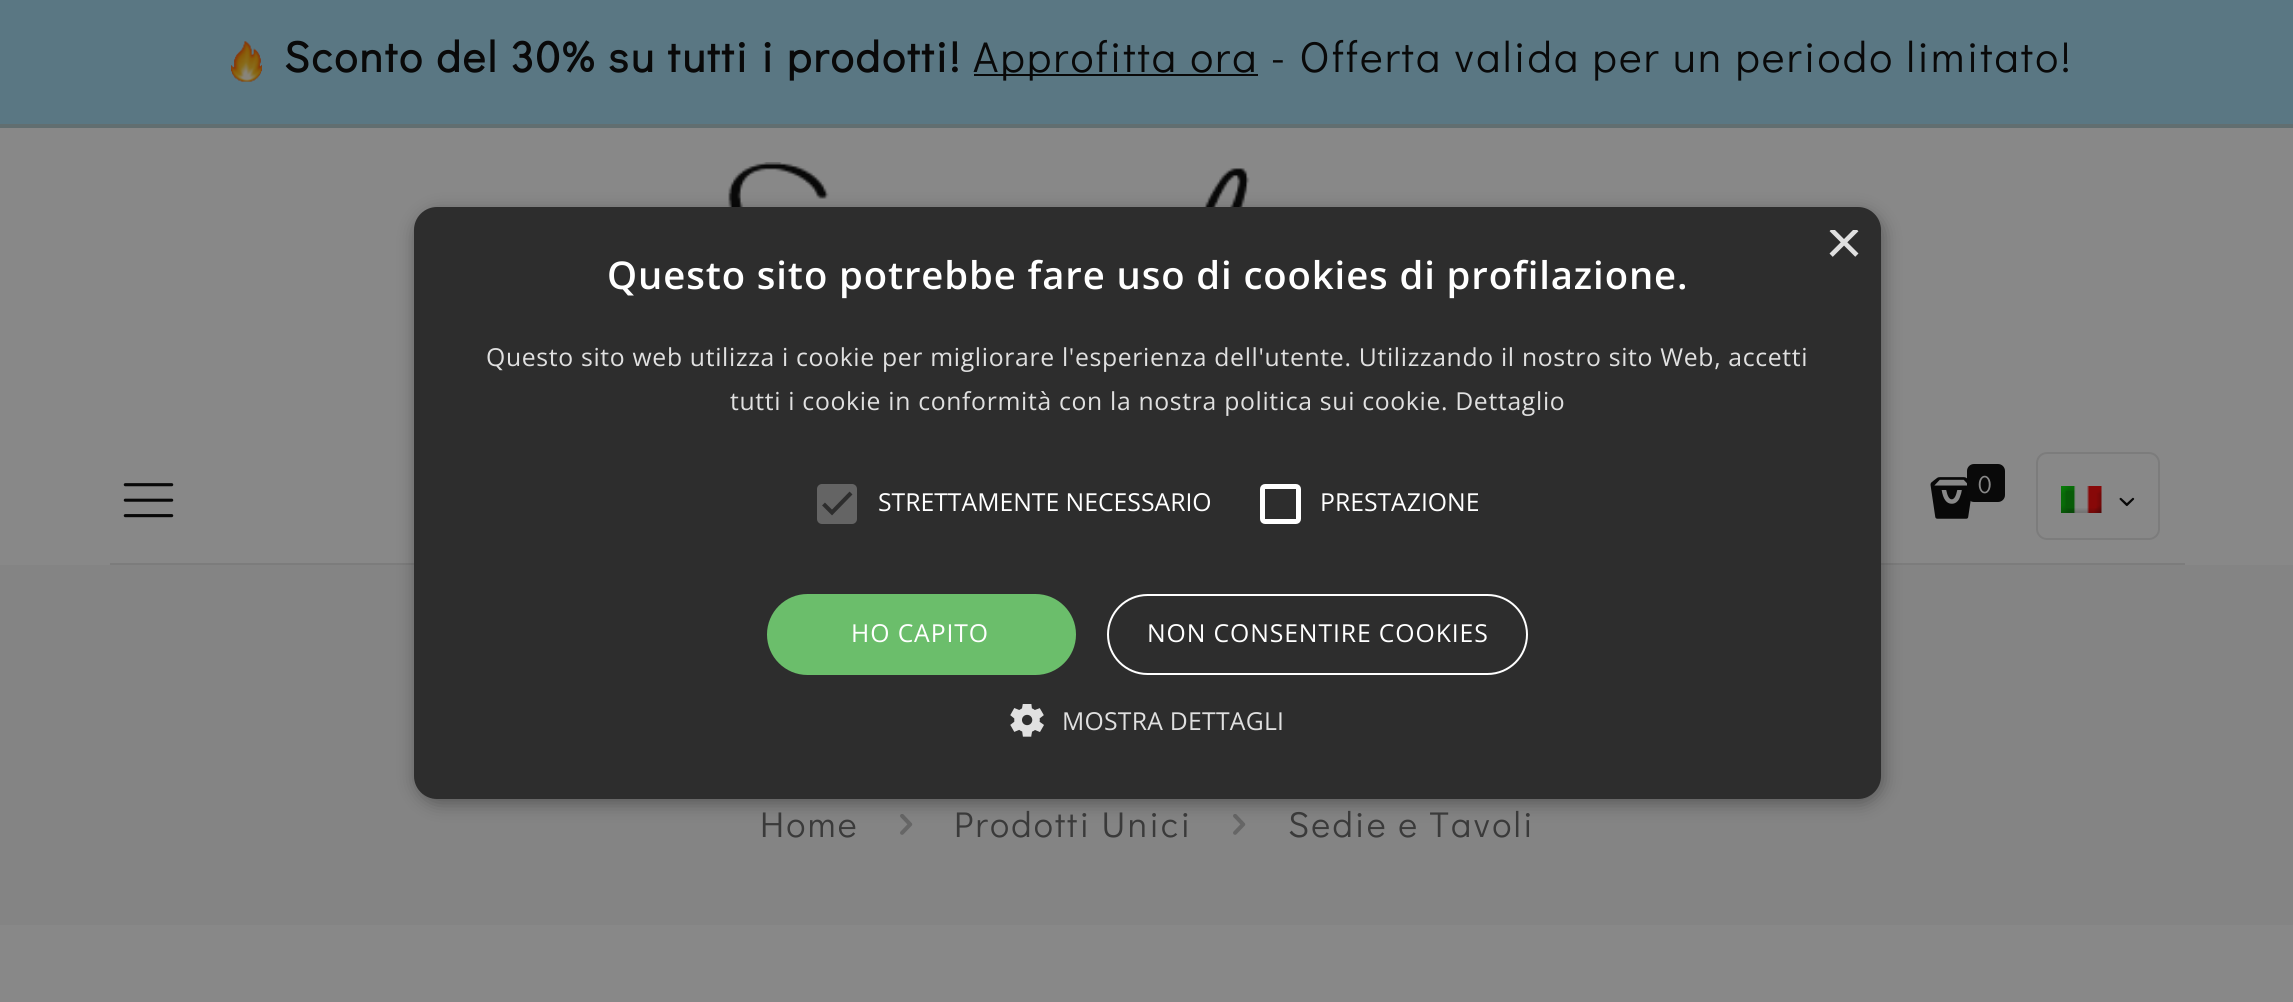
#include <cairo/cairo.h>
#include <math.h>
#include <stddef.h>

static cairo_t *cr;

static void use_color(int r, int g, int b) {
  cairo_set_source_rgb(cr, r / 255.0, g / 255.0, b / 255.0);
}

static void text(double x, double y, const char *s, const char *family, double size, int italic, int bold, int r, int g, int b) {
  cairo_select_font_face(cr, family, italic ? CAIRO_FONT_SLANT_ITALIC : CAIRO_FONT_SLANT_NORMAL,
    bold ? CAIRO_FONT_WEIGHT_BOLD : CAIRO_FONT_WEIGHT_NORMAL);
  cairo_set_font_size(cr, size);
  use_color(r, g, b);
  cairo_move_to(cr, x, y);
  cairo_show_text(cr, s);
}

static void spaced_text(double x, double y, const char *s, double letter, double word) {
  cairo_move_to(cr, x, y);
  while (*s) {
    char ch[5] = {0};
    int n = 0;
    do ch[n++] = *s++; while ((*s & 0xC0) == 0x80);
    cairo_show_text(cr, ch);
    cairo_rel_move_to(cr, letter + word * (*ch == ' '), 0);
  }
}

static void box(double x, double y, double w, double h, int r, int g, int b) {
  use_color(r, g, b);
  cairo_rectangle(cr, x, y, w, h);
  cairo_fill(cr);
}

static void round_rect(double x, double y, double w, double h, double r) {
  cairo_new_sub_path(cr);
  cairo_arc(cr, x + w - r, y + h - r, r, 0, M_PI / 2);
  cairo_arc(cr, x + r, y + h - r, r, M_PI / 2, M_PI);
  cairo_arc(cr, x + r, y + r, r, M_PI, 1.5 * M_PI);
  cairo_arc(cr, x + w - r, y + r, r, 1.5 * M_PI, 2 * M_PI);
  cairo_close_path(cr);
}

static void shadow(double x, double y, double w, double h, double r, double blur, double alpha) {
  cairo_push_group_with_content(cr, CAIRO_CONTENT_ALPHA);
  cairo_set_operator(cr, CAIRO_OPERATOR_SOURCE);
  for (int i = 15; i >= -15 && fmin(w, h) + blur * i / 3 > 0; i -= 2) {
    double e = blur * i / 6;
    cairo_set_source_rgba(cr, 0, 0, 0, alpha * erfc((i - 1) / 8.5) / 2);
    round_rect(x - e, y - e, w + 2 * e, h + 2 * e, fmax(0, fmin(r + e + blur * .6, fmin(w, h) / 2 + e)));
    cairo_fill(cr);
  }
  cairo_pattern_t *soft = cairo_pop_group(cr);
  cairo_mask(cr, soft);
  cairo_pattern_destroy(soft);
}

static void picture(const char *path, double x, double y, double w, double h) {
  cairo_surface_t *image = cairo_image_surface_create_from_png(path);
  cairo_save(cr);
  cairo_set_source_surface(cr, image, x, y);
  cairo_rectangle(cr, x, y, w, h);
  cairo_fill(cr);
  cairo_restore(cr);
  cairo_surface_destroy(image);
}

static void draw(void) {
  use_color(90, 119, 131);
  cairo_paint(cr);
  box(0, 124, 2293, 4, 97, 110, 112);
  picture("img_01.png", 231, 41, 31, 41);
  box(974, 74, 284, 2, 9, 9, 9);
  box(0, 128, 2293, 437, 136, 136, 136);
  picture("img_03.png", 728, 162, 522, 45);
  box(110, 563, 2075, 2, 124, 124, 124);
  box(0, 565, 2293, 360, 132, 132, 132);
  picture("img_08.png", 900, 814, 13, 21);
  picture("img_08.png", 1233, 814, 13, 21);
  use_color(0, 0, 0);
  shadow(416, 212, 1467, 591, 23, 9, 0.35);
  use_color(45, 45, 45);
  round_rect(414, 207, 1467, 592, 23);
  cairo_fill(cr);
  use_color(100, 100, 100);
  round_rect(817, 484, 40, 40, 5);
  cairo_fill(cr);
  cairo_new_path(cr);
  cairo_move_to(cr, 823.5, 504);
  cairo_line_to(cr, 832, 512.5);
  cairo_line_to(cr, 851, 493);
  use_color(45, 45, 45);
  cairo_set_line_width(cr, 4.1);
  cairo_stroke(cr);
  round_rect(1262.5, 486.5, 36, 35, 2.5);
  use_color(255, 255, 255);
  cairo_set_line_width(cr, 5);
  cairo_stroke(cr);
  use_color(107, 190, 107);
  round_rect(767, 594, 309, 81, 40.5);
  cairo_fill(cr);
  round_rect(1108, 595, 419, 79, 39.5);
  use_color(255, 255, 255);
  cairo_set_line_width(cr, 2);
  cairo_stroke(cr);
  picture("img_02.png", 1010, 704, 34, 33);
  box(0, 925, 2293, 77, 136, 136, 136);
  picture("img_04.png", 123, 483, 51, 35);
  picture("img_05.png", 1930, 477, 41, 42);
  use_color(9, 9, 9);
  round_rect(1967, 464, 38, 38, 7);
  cairo_fill(cr);
  round_rect(2037, 453, 122, 86, 10);
  use_color(124, 124, 124);
  cairo_stroke(cr);
  picture("img_06.png", 2061, 486, 41, 27);
  picture("img_07.png", 2119, 497, 16, 10);
  cairo_select_font_face(cr, "Didact Gothic", CAIRO_FONT_SLANT_NORMAL, CAIRO_FONT_WEIGHT_BOLD);
  cairo_set_font_size(cr, 43.2);
  use_color(9, 9, 9);
  spaced_text(284, 72, "Sconto del 30% su tutti i prodotti!", 2.25, 0);
  cairo_select_font_face(cr, "Didact Gothic", CAIRO_FONT_SLANT_NORMAL, CAIRO_FONT_WEIGHT_NORMAL);
  spaced_text(973, 72, "Approfitta ora - Offerta valida per un periodo limitato!", 2.25, 0);
  cairo_save(cr);
  cairo_rectangle(cr, 1825, 230, 34, 33);
  cairo_clip(cr);
  text(1825, 264, "×", "Liberation Sans", 65, 0, 0, 224, 224, 224);
  cairo_restore(cr);
  cairo_select_font_face(cr, "Open Sans SemiBold", CAIRO_FONT_SLANT_NORMAL, CAIRO_FONT_WEIGHT_NORMAL);
  cairo_set_font_size(cr, 38.25);
  use_color(255, 255, 255);
  spaced_text(607, 289, "Questo sito potrebbe fare uso di cookies di profilazione.", 0.9, 0);
  cairo_select_font_face(cr, "Open Sans", CAIRO_FONT_SLANT_NORMAL, CAIRO_FONT_WEIGHT_NORMAL);
  cairo_set_font_size(cr, 24.75);
  use_color(224, 224, 224);
  spaced_text(486, 366, "Questo sito web utilizza i cookie per migliorare l'esperienza dell'utente. Utilizzando il nostro sito Web, accetti", 0.67, 0);
  spaced_text(730, 410, "tutti i cookie in conformità con la nostra politica sui cookie. Dettaglio", 0.67, 0);
  text(878, 511, "STRETTAMENTE NECESSARIO", "Open Sans", 24.75, 0, 0, 255, 255, 255);
  text(1320, 511, "PRESTAZIONE", "Open Sans", 24.75, 0, 0, 255, 255, 255);
  spaced_text(851, 642, "HO CAPITO", 0.9, 0);
  spaced_text(1147, 642, "NON CONSENTIRE COOKIES", 0.9, 0);
  use_color(224, 224, 224);
  spaced_text(1062, 730, "MOSTRA DETTAGLI", 0.25, 0);
  cairo_select_font_face(cr, "Didact Gothic", CAIRO_FONT_SLANT_NORMAL, CAIRO_FONT_WEIGHT_NORMAL);
  use_color(136, 136, 136);
  spaced_text(1978, 493, "0", 2.25, 0);
  cairo_set_font_size(cr, 36);
  use_color(58, 58, 58);
  spaced_text(760, 837, "Home", 2.25, 0);
  spaced_text(954, 837, "Prodotti Unici", 2.25, 0);
  spaced_text(1288, 837, "Sedie e Tavoli", 2.25, 0);
}

int main(void) {
  cairo_surface_t *surface = cairo_image_surface_create(CAIRO_FORMAT_RGB24, 2293, 1002);
  cr = cairo_create(surface);
  cairo_font_options_t *options = cairo_font_options_create();
  cairo_font_options_set_hint_metrics(options, CAIRO_HINT_METRICS_OFF);
  cairo_font_options_set_hint_style(options, CAIRO_HINT_STYLE_NONE);
  cairo_set_font_options(cr, options);
  cairo_set_miter_limit(cr, 4);
  draw();
  cairo_surface_write_to_png(surface, "out.png");
  cairo_font_options_destroy(options);
  cairo_destroy(cr);
  cairo_surface_destroy(surface);
  return 0;
}
